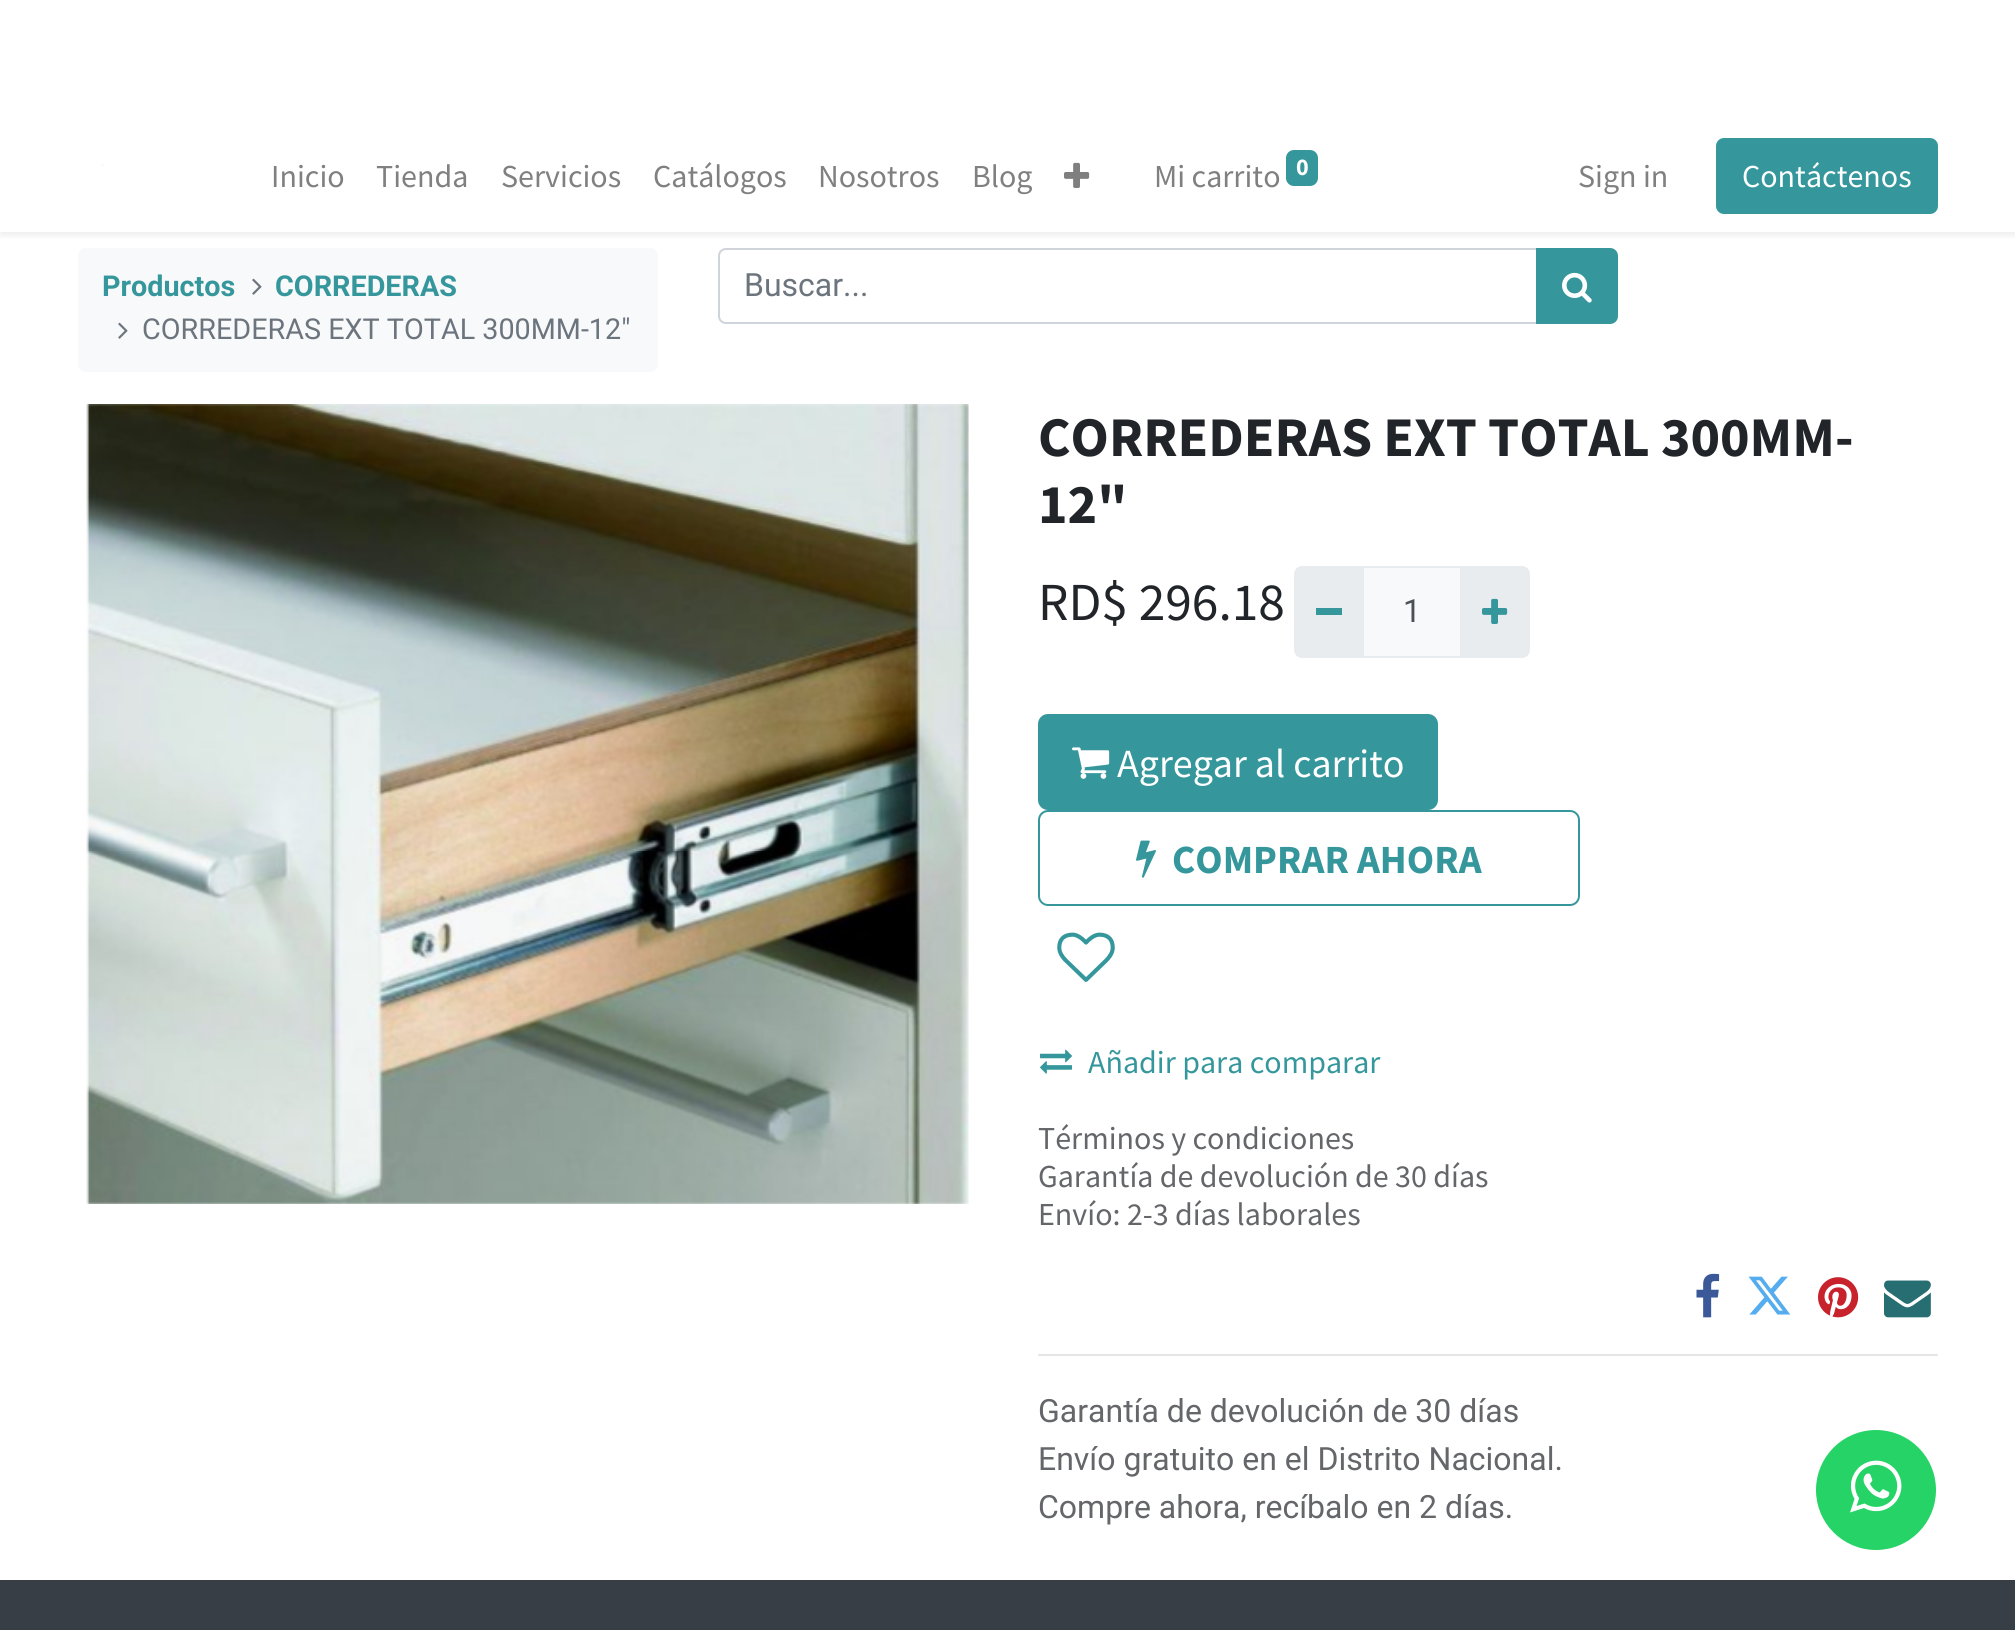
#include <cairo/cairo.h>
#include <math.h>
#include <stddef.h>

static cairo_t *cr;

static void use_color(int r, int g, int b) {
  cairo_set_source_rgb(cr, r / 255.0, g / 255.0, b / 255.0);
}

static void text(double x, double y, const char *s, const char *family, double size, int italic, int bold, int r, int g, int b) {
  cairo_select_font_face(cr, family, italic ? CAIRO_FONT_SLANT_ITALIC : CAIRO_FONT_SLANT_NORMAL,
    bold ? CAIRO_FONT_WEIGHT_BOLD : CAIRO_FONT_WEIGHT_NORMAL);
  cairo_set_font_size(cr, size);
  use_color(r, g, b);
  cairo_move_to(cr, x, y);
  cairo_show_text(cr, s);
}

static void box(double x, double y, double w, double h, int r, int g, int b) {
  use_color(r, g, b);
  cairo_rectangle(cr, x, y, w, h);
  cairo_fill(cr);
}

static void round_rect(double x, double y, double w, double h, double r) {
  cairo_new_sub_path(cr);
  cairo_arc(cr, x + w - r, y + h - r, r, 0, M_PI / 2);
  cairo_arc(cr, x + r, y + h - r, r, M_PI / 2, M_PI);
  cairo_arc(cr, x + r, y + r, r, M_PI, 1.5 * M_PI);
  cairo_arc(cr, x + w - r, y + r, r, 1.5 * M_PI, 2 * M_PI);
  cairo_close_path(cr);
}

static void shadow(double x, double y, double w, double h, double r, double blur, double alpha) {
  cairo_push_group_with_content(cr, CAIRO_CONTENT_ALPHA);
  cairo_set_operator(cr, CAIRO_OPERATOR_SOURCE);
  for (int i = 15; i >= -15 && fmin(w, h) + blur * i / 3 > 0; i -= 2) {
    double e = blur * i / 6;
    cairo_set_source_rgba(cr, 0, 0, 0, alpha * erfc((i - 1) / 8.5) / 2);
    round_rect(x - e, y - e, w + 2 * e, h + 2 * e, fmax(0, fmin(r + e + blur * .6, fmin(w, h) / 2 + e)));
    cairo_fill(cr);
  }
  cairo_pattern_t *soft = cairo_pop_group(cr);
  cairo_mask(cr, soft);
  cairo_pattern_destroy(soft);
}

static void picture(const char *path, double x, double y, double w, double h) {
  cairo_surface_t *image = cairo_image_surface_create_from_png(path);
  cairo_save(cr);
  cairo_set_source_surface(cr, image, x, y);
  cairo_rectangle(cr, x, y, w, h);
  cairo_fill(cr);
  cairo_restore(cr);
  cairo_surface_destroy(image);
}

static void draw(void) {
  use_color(255, 255, 255);
  cairo_paint(cr);
  use_color(248, 249, 250);
  round_rect(78, 248, 580, 124, 8);
  cairo_fill(cr);
  cairo_new_path(cr);
  cairo_move_to(cr, 726, 249);
  cairo_line_to(cr, 1537, 249);
  cairo_line_to(cr, 1537, 323);
  cairo_line_to(cr, 726, 323);
  cairo_curve_to(cr, 722, 323, 719, 320, 719, 316);
  cairo_line_to(cr, 719, 256);
  cairo_curve_to(cr, 719, 252, 722, 249, 726, 249);
  cairo_close_path(cr);
  use_color(206, 212, 218);
  cairo_stroke(cr);
  use_color(53, 151, 156);
  cairo_new_path(cr);
  cairo_move_to(cr, 1537, 249);
  cairo_line_to(cr, 1610, 249);
  cairo_curve_to(cr, 1614, 249, 1617, 252, 1617, 256);
  cairo_line_to(cr, 1617, 316);
  cairo_curve_to(cr, 1617, 320, 1614, 323, 1610, 323);
  cairo_line_to(cr, 1537, 323);
  cairo_close_path(cr);
  cairo_fill_preserve(cr);
  cairo_stroke(cr);
  cairo_save(cr);
  cairo_rectangle(cr, 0, 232, 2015, 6);
  cairo_clip(cr);
  use_color(0, 0, 0);
  shadow(0, 124, 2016, 112, 0, 4, 0.07);
  cairo_restore(cr);
  box(101, 164, 3, 2, 250, 250, 250);
  picture("img_01.png", 1064, 162, 26, 26);
  use_color(53, 151, 156);
  round_rect(1286, 150, 32, 36, 8);
  cairo_fill(cr);
  round_rect(1717, 139, 220, 74, 7);
  cairo_fill_preserve(cr);
  cairo_stroke(cr);
  picture("img_02.png", 252, 278, 10, 17);
  picture("img_02.png", 118, 322, 10, 17);
  picture("img_03.png", 1562, 272, 30, 31);
  picture("img_04.png", 86, 404, 883, 800);
  use_color(248, 249, 250);
  cairo_rectangle(cr, 1363, 567, 98, 90);
  cairo_fill_preserve(cr);
  use_color(233, 236, 239);
  cairo_stroke(cr);
  cairo_new_path(cr);
  cairo_move_to(cr, 1302, 566);
  cairo_line_to(cr, 1364, 566);
  cairo_line_to(cr, 1364, 658);
  cairo_line_to(cr, 1302, 658);
  cairo_curve_to(cr, 1297.5, 658, 1294, 654.5, 1294, 650);
  cairo_line_to(cr, 1294, 574);
  cairo_curve_to(cr, 1294, 569.5, 1297.5, 566, 1302, 566);
  cairo_close_path(cr);
  cairo_fill(cr);
  box(1316, 608, 26, 7, 53, 151, 156);
  use_color(233, 236, 239);
  cairo_new_path(cr);
  cairo_move_to(cr, 1460, 566);
  cairo_line_to(cr, 1522, 566);
  cairo_curve_to(cr, 1526.5, 566, 1530, 569.5, 1530, 574);
  cairo_line_to(cr, 1530, 650);
  cairo_curve_to(cr, 1530, 654.5, 1526.5, 658, 1522, 658);
  cairo_line_to(cr, 1460, 658);
  cairo_close_path(cr);
  cairo_fill(cr);
  picture("img_05.png", 1482, 598, 26, 26);
  use_color(53, 151, 156);
  round_rect(1039, 715, 398, 94, 9);
  cairo_fill_preserve(cr);
  cairo_stroke(cr);
  picture("img_06.png", 1072, 747, 38, 32);
  round_rect(1039, 811, 540, 94, 9);
  cairo_stroke(cr);
  picture("img_07.png", 1136, 840, 20, 38);
  picture("img_08.png", 1057, 932, 58, 50);
  picture("img_09.png", 1040, 1049, 32, 25);
  picture("img_10.png", 1696, 1273, 24, 45);
  picture("img_11.png", 1748, 1276, 43, 39);
  picture("img_12.png", 1818, 1277, 41, 41);
  picture("img_13.png", 1884, 1280, 47, 38);
  box(1038, 1354, 900, 2, 230, 230, 230);
  box(0, 1580, 2015, 50, 56, 62, 69);
  use_color(37, 211, 102);
  cairo_arc(cr, 1876, 1490, 60, 0, 2 * M_PI);
  cairo_fill(cr);
  picture("img_14.png", 1850, 1460, 52, 53);
  text(271, 187, "Inicio", "Source Sans Pro", 32, 0, 0, 128, 128, 128);
  text(376, 187, "Tienda", "Source Sans Pro", 32, 0, 0, 128, 128, 128);
  text(501, 187, "Servicios", "Source Sans Pro", 32, 0, 0, 128, 128, 128);
  text(653, 187, "Catálogos", "Source Sans Pro", 32, 0, 0, 128, 128, 128);
  text(818, 187, "Nosotros", "Source Sans Pro", 32, 0, 0, 128, 128, 128);
  text(972, 187, "Blog", "Source Sans Pro", 32, 0, 0, 128, 128, 128);
  text(1154, 187, "Mi carrito", "Source Sans Pro", 32, 0, 0, 128, 128, 128);
  text(1296, 175, "0", "Source Sans Pro", 24, 0, 1, 255, 255, 255);
  text(1578, 187, "Sign in", "Source Sans Pro", 32, 0, 0, 128, 128, 128);
  text(1742, 187, "Contáctenos", "Source Sans Pro", 32, 0, 0, 255, 255, 255);
  text(102, 296, "Productos", "Roboto", 28.75, 0, 1, 53, 151, 156);
  text(275, 296, "CORREDERAS", "Roboto", 28.75, 0, 1, 53, 151, 156);
  text(142, 339, "CORREDERAS EXT TOTAL 300MM-12\"", "Roboto", 28.75, 0, 0, 108, 117, 125);
  text(744, 296, "Buscar...", "Roboto", 32, 0, 0, 108, 117, 125);
  text(1038, 456, "CORREDERAS EXT TOTAL 300MM-", "Source Sans Pro", 56, 0, 1, 33, 37, 41);
  text(1038, 523, "12\"", "Source Sans Pro", 56, 0, 1, 33, 37, 41);
  text(1038, 620, "RD$ 296.18", "Source Sans Pro", 53.5, 0, 0, 33, 37, 41);
  text(1403, 622, "1", "Roboto", 32, 0, 0, 73, 80, 87);
  text(1117, 777, "Agregar al carrito", "Source Sans Pro", 40, 0, 0, 255, 255, 255);
  text(1172, 873, "COMPRAR AHORA", "Source Sans Pro", 40, 0, 1, 53, 151, 156);
  text(1088, 1073, "Añadir para comparar", "Source Sans Pro", 32, 0, 0, 53, 151, 156);
  text(1038, 1149, "Términos y condiciones", "Source Sans Pro", 32, 0, 0, 100, 102, 105);
  text(1038, 1187, "Garantía de devolución de 30 días", "Source Sans Pro", 32, 0, 0, 100, 102, 105);
  text(1038, 1225, "Envío: 2-3 días laborales", "Source Sans Pro", 32, 0, 0, 100, 102, 105);
  text(1038, 1422, "Garantía de devolución de 30 días", "Roboto", 32, 0, 0, 100, 102, 105);
  text(1038, 1470, "Envío gratuito en el Distrito Nacional.", "Roboto", 32, 0, 0, 100, 102, 105);
  text(1038, 1518, "Compre ahora, recíbalo en 2 días.", "Roboto", 32, 0, 0, 100, 102, 105);
}

int main(void) {
  cairo_surface_t *surface = cairo_image_surface_create(CAIRO_FORMAT_RGB24, 2015, 1630);
  cr = cairo_create(surface);
  cairo_font_options_t *options = cairo_font_options_create();
  cairo_font_options_set_hint_metrics(options, CAIRO_HINT_METRICS_OFF);
  cairo_font_options_set_hint_style(options, CAIRO_HINT_STYLE_NONE);
  cairo_set_font_options(cr, options);
  cairo_set_miter_limit(cr, 4);
  draw();
  cairo_surface_write_to_png(surface, "out.png");
  cairo_font_options_destroy(options);
  cairo_destroy(cr);
  cairo_surface_destroy(surface);
  return 0;
}
